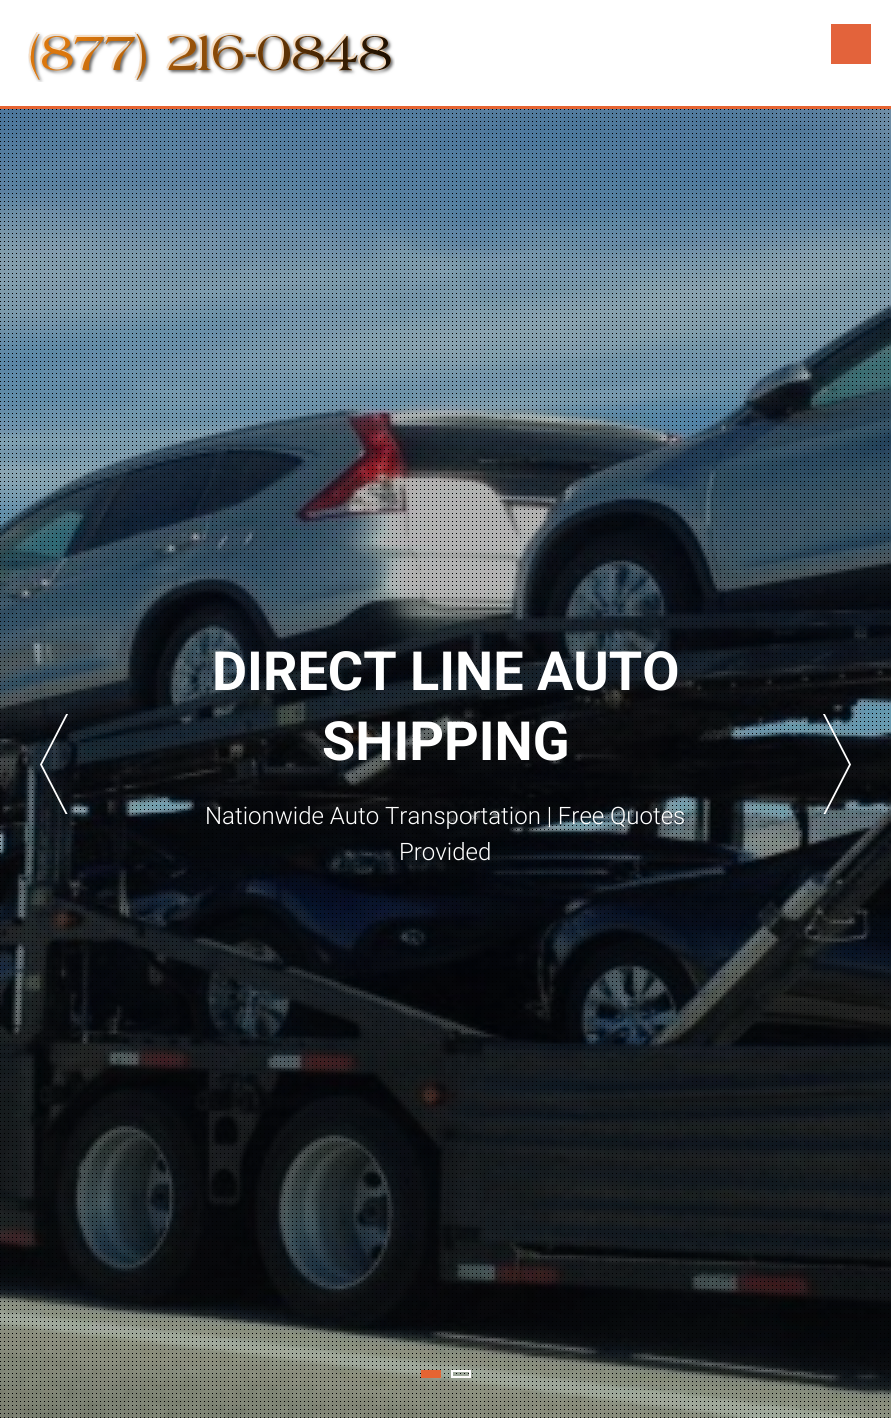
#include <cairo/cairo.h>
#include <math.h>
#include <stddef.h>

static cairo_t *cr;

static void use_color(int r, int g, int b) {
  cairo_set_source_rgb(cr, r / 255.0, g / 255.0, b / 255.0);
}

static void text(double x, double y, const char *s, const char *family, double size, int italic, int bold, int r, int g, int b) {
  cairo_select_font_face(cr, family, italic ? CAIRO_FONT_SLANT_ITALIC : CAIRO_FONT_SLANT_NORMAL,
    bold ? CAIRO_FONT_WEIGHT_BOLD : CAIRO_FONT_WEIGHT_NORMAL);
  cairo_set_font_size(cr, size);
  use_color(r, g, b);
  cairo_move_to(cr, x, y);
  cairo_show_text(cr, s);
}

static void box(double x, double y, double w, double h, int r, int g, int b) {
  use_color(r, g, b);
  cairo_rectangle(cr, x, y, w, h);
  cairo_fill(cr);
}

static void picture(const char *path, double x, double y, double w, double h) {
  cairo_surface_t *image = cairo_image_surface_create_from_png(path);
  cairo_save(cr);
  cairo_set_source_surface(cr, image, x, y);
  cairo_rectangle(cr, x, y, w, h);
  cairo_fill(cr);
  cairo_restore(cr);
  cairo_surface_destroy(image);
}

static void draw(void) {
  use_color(255, 255, 255);
  cairo_paint(cr);
  box(0, 106, 891, 3, 230, 100, 50);
  picture("img_01.png", 28, 32, 367, 50);
  box(831, 24, 40, 40, 227, 99, 59);
  picture("img_03.png", 0, 109, 891, 1309);
  picture("img_04.png", 0, 109, 889, 1309);
  picture("img_02.png", 40, 714, 28, 100);
  picture("img_05.png", 823, 714, 28, 100);
  box(421, 1370, 20, 8, 230, 100, 50);
  cairo_rectangle(cr, 452, 1371, 18, 6);
  use_color(255, 255, 255);
  cairo_stroke(cr);
  text(212, 690, "DIRECT LINE AUTO", "Roboto", 54, 0, 1, 255, 255, 255);
  text(322, 760, "SHIPPING", "Roboto", 54, 0, 1, 255, 255, 255);
  text(205, 824, "Nationwide Auto Transportation | Free Quotes", "Roboto Light", 24, 0, 0, 255, 255, 255);
  text(399, 860, "Provided", "Roboto Light", 24, 0, 0, 255, 255, 255);
}

int main(void) {
  cairo_surface_t *surface = cairo_image_surface_create(CAIRO_FORMAT_RGB24, 891, 1418);
  cr = cairo_create(surface);
  cairo_font_options_t *options = cairo_font_options_create();
  cairo_font_options_set_hint_metrics(options, CAIRO_HINT_METRICS_OFF);
  cairo_font_options_set_hint_style(options, CAIRO_HINT_STYLE_NONE);
  cairo_set_font_options(cr, options);
  cairo_set_miter_limit(cr, 4);
  draw();
  cairo_surface_write_to_png(surface, "out.png");
  cairo_font_options_destroy(options);
  cairo_destroy(cr);
  cairo_surface_destroy(surface);
  return 0;
}
